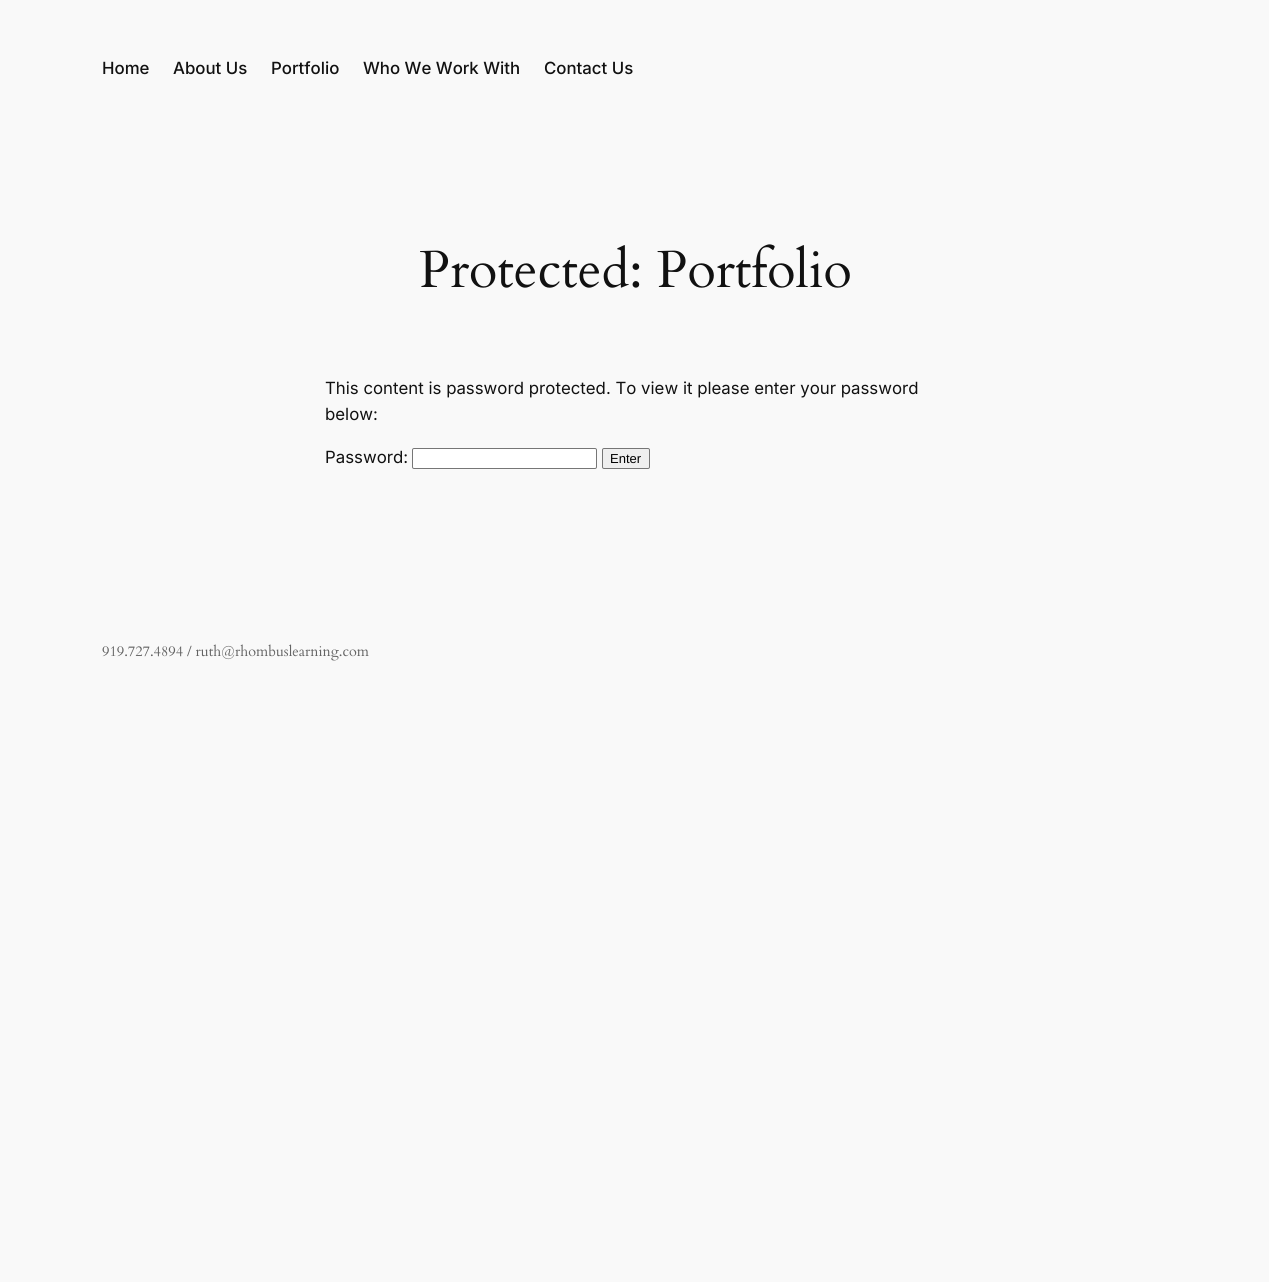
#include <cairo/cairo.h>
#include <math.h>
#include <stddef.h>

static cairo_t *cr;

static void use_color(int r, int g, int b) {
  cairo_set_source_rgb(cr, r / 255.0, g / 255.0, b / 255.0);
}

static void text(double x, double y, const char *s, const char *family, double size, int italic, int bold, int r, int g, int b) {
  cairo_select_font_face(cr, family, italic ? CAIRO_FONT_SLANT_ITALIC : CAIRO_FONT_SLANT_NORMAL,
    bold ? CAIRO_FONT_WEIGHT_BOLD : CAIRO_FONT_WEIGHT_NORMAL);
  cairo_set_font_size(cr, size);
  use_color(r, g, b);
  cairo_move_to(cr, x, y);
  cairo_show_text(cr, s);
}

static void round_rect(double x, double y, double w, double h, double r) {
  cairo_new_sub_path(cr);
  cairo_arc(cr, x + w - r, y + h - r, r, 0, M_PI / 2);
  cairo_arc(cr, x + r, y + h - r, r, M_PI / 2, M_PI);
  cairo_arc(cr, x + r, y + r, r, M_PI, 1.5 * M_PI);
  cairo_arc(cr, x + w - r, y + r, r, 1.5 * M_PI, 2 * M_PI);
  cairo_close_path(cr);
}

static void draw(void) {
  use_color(249, 249, 249);
  cairo_paint(cr);
  use_color(255, 255, 255);
  round_rect(412.5, 448.5, 184, 20, 1.5);
  cairo_fill_preserve(cr);
  use_color(118, 118, 118);
  cairo_set_line_width(cr, 1);
  cairo_stroke(cr);
  use_color(239, 239, 239);
  round_rect(602.5, 448.5, 47, 20, 1.5);
  cairo_fill_preserve(cr);
  use_color(118, 118, 118);
  cairo_stroke(cr);
  text(102, 74, "Home", "Inter Medium", 16.8, 0, 0, 17, 17, 17);
  text(173, 74, "About Us", "Inter Medium", 16.8, 0, 0, 17, 17, 17);
  text(271, 74, "Portfolio", "Inter Medium", 16.8, 0, 0, 17, 17, 17);
  text(363, 74, "Who We Work With", "Inter Medium", 16.8, 0, 0, 17, 17, 17);
  text(544, 74, "Contact Us", "Inter Medium", 16.8, 0, 0, 17, 17, 17);
  text(419, 287, "Protected: Portfolio", "Cardo", 52.25, 0, 0, 17, 17, 17);
  text(325, 394, "This content is password protected. To view it please enter your password", "Inter", 16.8, 0, 0, 17, 17, 17);
  text(325, 420, "below:", "Inter", 16.8, 0, 0, 17, 17, 17);
  text(325, 463, "Password:", "Inter", 16.8, 0, 0, 17, 17, 17);
  text(610, 463, "Enter", "Liberation Sans", 13, 0, 0, 0, 0, 0);
  text(102, 656, "919.727.4894 / ruth@rhombuslearning.com", "Cardo", 14.4, 0, 0, 99, 99, 99);
}

int main(void) {
  cairo_surface_t *surface = cairo_image_surface_create(CAIRO_FORMAT_RGB24, 1269, 1282);
  cr = cairo_create(surface);
  cairo_font_options_t *options = cairo_font_options_create();
  cairo_font_options_set_hint_metrics(options, CAIRO_HINT_METRICS_OFF);
  cairo_font_options_set_hint_style(options, CAIRO_HINT_STYLE_NONE);
  cairo_set_font_options(cr, options);
  cairo_set_miter_limit(cr, 4);
  draw();
  cairo_surface_write_to_png(surface, "out.png");
  cairo_font_options_destroy(options);
  cairo_destroy(cr);
  cairo_surface_destroy(surface);
  return 0;
}
